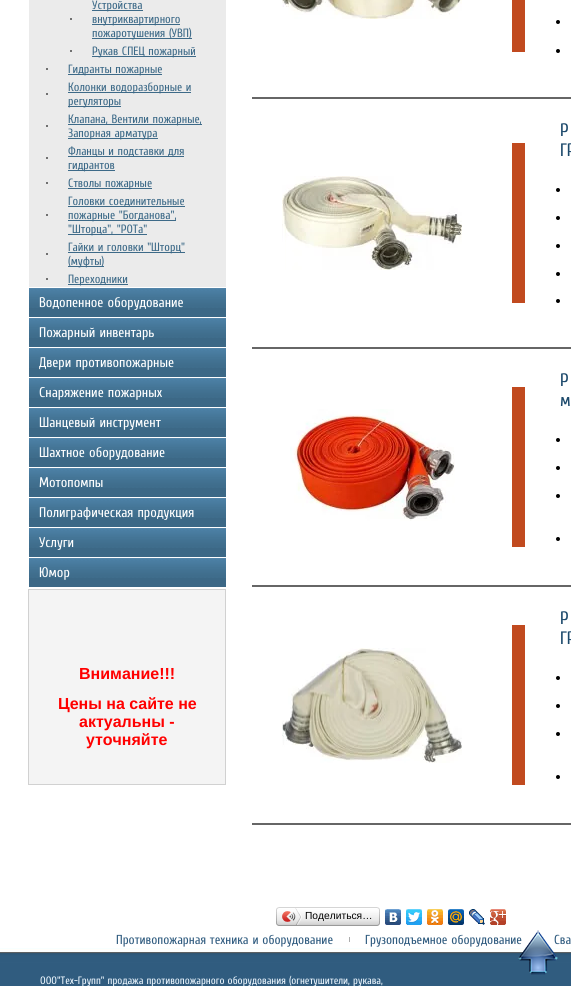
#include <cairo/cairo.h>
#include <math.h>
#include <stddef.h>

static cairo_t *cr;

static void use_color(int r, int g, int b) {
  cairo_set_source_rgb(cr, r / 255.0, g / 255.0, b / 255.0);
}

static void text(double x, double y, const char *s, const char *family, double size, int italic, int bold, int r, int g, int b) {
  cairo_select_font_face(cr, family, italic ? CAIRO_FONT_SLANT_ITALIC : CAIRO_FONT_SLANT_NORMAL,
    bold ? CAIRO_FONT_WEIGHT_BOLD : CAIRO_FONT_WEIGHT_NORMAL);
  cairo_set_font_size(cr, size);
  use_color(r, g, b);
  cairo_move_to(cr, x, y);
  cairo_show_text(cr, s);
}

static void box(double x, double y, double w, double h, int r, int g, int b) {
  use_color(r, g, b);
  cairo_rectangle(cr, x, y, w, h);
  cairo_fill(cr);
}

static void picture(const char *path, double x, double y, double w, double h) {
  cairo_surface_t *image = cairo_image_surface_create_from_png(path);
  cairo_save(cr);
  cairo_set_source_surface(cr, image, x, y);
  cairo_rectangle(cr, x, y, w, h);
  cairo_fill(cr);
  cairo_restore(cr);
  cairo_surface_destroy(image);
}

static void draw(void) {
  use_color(255, 255, 255);
  cairo_paint(cr);
  box(29, 0, 197, 287, 235, 235, 235);
  box(70, 18, 2, 2, 112, 112, 112);
  box(92, 10, 51, 1, 61, 106, 136);
  box(92, 24, 88, 1, 61, 106, 136);
  box(92, 38, 100, 1, 61, 106, 136);
  box(70, 50, 2, 2, 112, 112, 112);
  box(92, 56, 104, 1, 61, 106, 136);
  box(46, 68, 2, 2, 112, 112, 112);
  box(68, 74, 94, 1, 61, 106, 136);
  box(46, 93, 2, 2, 112, 112, 112);
  box(68, 92, 123, 1, 61, 106, 136);
  box(68, 106, 53, 1, 61, 106, 136);
  box(46, 125, 2, 2, 112, 112, 112);
  box(68, 124, 134, 1, 61, 106, 136);
  box(68, 138, 90, 1, 61, 106, 136);
  box(46, 157, 2, 2, 112, 112, 112);
  box(68, 156, 116, 1, 61, 106, 136);
  box(68, 170, 47, 1, 61, 106, 136);
  box(46, 182, 2, 2, 112, 112, 112);
  box(68, 188, 84, 1, 61, 106, 136);
  box(46, 214, 2, 2, 112, 112, 112);
  box(68, 206, 117, 1, 61, 106, 136);
  box(68, 220, 108, 1, 61, 106, 136);
  box(68, 234, 79, 1, 61, 106, 136);
  box(46, 253, 2, 2, 112, 112, 112);
  box(68, 252, 117, 1, 61, 106, 136);
  box(68, 266, 36, 1, 61, 106, 136);
  box(46, 278, 2, 2, 112, 112, 112);
  box(68, 284, 60, 1, 61, 106, 136);
  box(29, 308, 197, 9, 60, 104, 134);
  picture("img_01.png", 29, 288, 197, 20);
  box(29, 338, 197, 9, 60, 104, 134);
  picture("img_01.png", 29, 318, 197, 20);
  box(29, 368, 197, 9, 60, 104, 134);
  picture("img_01.png", 29, 348, 197, 20);
  box(29, 398, 197, 9, 60, 104, 134);
  picture("img_01.png", 29, 378, 197, 20);
  box(29, 428, 197, 9, 60, 104, 134);
  picture("img_01.png", 29, 408, 197, 20);
  box(29, 458, 197, 9, 60, 104, 134);
  picture("img_01.png", 29, 438, 197, 20);
  box(29, 488, 197, 9, 60, 104, 134);
  picture("img_01.png", 29, 468, 197, 20);
  box(29, 518, 197, 9, 60, 104, 134);
  picture("img_01.png", 29, 498, 197, 20);
  box(29, 548, 197, 9, 60, 104, 134);
  picture("img_01.png", 29, 528, 197, 20);
  box(29, 578, 197, 9, 60, 104, 134);
  picture("img_01.png", 29, 558, 197, 20);
  use_color(244, 244, 244);
  cairo_rectangle(cr, 28.5, 589.5, 197, 195);
  cairo_fill_preserve(cr);
  use_color(209, 209, 209);
  cairo_set_line_width(cr, 1);
  cairo_stroke(cr);
  picture("img_02.png", 282, 0, 180, 19);
  use_color(0, 0, 0);
  cairo_arc(cr, 558, 22, 2, 0, 2 * M_PI);
  cairo_fill(cr);
  cairo_arc(cr, 558, 51, 2, 0, 2 * M_PI);
  cairo_fill(cr);
  box(512, 0, 13, 52, 193, 74, 31);
  box(252, 97, 319, 2, 102, 102, 102);
  use_color(0, 0, 0);
  cairo_arc(cr, 558, 190, 2, 0, 2 * M_PI);
  cairo_fill(cr);
  cairo_arc(cr, 558, 218, 2, 0, 2 * M_PI);
  cairo_fill(cr);
  cairo_arc(cr, 558, 246, 2, 0, 2 * M_PI);
  cairo_fill(cr);
  cairo_arc(cr, 558, 274, 2, 0, 2 * M_PI);
  cairo_fill(cr);
  cairo_arc(cr, 558, 301, 2, 0, 2 * M_PI);
  cairo_fill(cr);
  picture("img_03.png", 282, 176, 180, 94);
  box(512, 143, 13, 160, 193, 74, 31);
  box(252, 347, 319, 2, 102, 102, 102);
  box(512, 387, 13, 160, 193, 74, 31);
  use_color(0, 0, 0);
  cairo_arc(cr, 558, 440, 2, 0, 2 * M_PI);
  cairo_fill(cr);
  cairo_arc(cr, 558, 468, 2, 0, 2 * M_PI);
  cairo_fill(cr);
  cairo_arc(cr, 558, 496, 2, 0, 2 * M_PI);
  cairo_fill(cr);
  cairo_arc(cr, 558, 539, 2, 0, 2 * M_PI);
  cairo_fill(cr);
  picture("img_04.png", 290, 409, 165, 112);
  box(252, 585, 319, 2, 102, 102, 102);
  box(512, 625, 13, 160, 193, 74, 31);
  use_color(0, 0, 0);
  cairo_arc(cr, 558, 678, 2, 0, 2 * M_PI);
  cairo_fill(cr);
  cairo_arc(cr, 558, 706, 2, 0, 2 * M_PI);
  cairo_fill(cr);
  cairo_arc(cr, 558, 734, 2, 0, 2 * M_PI);
  cairo_fill(cr);
  cairo_arc(cr, 558, 777, 2, 0, 2 * M_PI);
  cairo_fill(cr);
  picture("img_05.png", 282, 648, 180, 115);
  box(252, 823, 319, 2, 102, 102, 102);
  picture("img_06.png", 279, 907, 98, 19);
  picture("img_07.png", 276, 907, 3, 19);
  picture("img_08.png", 282, 908, 20, 17);
  picture("img_09.png", 377, 907, 3, 19);
  picture("img_10.png", 385, 909, 16, 16);
  picture("img_11.png", 406, 909, 16, 16);
  picture("img_12.png", 427, 909, 16, 16);
  picture("img_13.png", 448, 909, 16, 16);
  picture("img_14.png", 469, 909, 16, 16);
  picture("img_15.png", 490, 909, 16, 16);
  picture("img_16.png", 0, 948, 571, 38);
  box(349, 937, 1, 5, 173, 173, 173);
  text(92, 9, "Устройства", "Cuprum", 12, 0, 0, 61, 106, 136);
  text(92, 23, "внутриквартирного", "Cuprum", 12, 0, 0, 61, 106, 136);
  text(92, 37, "пожаротушения (УВП)", "Cuprum", 12, 0, 0, 61, 106, 136);
  text(92, 55, "Рукав СПЕЦ пожарный", "Cuprum", 12, 0, 0, 61, 106, 136);
  text(68, 73, "Гидранты пожарные", "Cuprum", 12, 0, 0, 61, 106, 136);
  text(68, 91, "Колонки водоразборные и", "Cuprum", 12, 0, 0, 61, 106, 136);
  text(68, 105, "регуляторы", "Cuprum", 12, 0, 0, 61, 106, 136);
  text(68, 123, "Клапана, Вентили пожарные,", "Cuprum", 12, 0, 0, 61, 106, 136);
  text(68, 137, "Запорная арматура", "Cuprum", 12, 0, 0, 61, 106, 136);
  text(68, 155, "Фланцы и подставки для", "Cuprum", 12, 0, 0, 61, 106, 136);
  text(68, 169, "гидрантов", "Cuprum", 12, 0, 0, 61, 106, 136);
  text(68, 187, "Стволы пожарные", "Cuprum", 12, 0, 0, 61, 106, 136);
  text(68, 205, "Головки соединительные", "Cuprum", 12, 0, 0, 61, 106, 136);
  text(68, 219, "пожарные \"Богданова\",", "Cuprum", 12, 0, 0, 61, 106, 136);
  text(68, 233, "\"Шторца\", \"РОТа\"", "Cuprum", 12, 0, 0, 61, 106, 136);
  text(68, 251, "Гайки и головки \"Шторц\"", "Cuprum", 12, 0, 0, 61, 106, 136);
  text(68, 265, "(муфты)", "Cuprum", 12, 0, 0, 61, 106, 136);
  text(68, 283, "Переходники", "Cuprum", 12, 0, 0, 61, 106, 136);
  text(39, 307, "Водопенное оборудование", "Cuprum", 14, 0, 0, 255, 255, 255);
  text(39, 337, "Пожарный инвентарь", "Cuprum", 14, 0, 0, 255, 255, 255);
  text(39, 367, "Двери противопожарные", "Cuprum", 14, 0, 0, 255, 255, 255);
  text(39, 397, "Снаряжение пожарных", "Cuprum", 14, 0, 0, 255, 255, 255);
  text(39, 427, "Шанцевый инструмент", "Cuprum", 14, 0, 0, 255, 255, 255);
  text(39, 457, "Шахтное оборудование", "Cuprum", 14, 0, 0, 255, 255, 255);
  text(39, 487, "Мотопомпы", "Cuprum", 14, 0, 0, 255, 255, 255);
  text(39, 517, "Полиграфическая продукция", "Cuprum", 14, 0, 0, 255, 255, 255);
  text(39, 547, "Услуги", "Cuprum", 14, 0, 0, 255, 255, 255);
  text(39, 577, "Юмор", "Cuprum", 14, 0, 0, 255, 255, 255);
  text(79, 679, "Внимание!!!", "Liberation Sans", 16, 0, 1, 255, 0, 0);
  text(58, 709, "Цены на сайте не", "Liberation Sans", 16, 0, 1, 255, 0, 0);
  text(79, 727, "актуальны -", "Liberation Sans", 16, 0, 1, 255, 0, 0);
  text(86, 745, "уточняйте", "Liberation Sans", 16, 0, 1, 255, 0, 0);
  text(560, 136, "Р", "Cuprum", 18, 0, 0, 29, 74, 108);
  text(560, 156, "ГР", "Cuprum", 18, 0, 0, 29, 74, 108);
  text(560, 386, "Р", "Cuprum", 18, 0, 0, 29, 74, 108);
  text(560, 406, "м", "Cuprum", 18, 0, 0, 29, 74, 108);
  text(560, 624, "Р", "Cuprum", 18, 0, 0, 29, 74, 108);
  text(560, 644, "ГР", "Cuprum", 18, 0, 0, 29, 74, 108);
  text(305, 919, "Поделиться…", "Liberation Sans", 10.25, 0, 0, 0, 0, 0);
  text(116, 944, "Противопожарная техника и оборудование", "Cuprum", 13, 0, 0, 48, 92, 127);
  text(365, 944, "Грузоподъемное оборудование", "Cuprum", 13, 0, 0, 48, 92, 127);
  text(554, 944, "Сва", "Cuprum", 13, 0, 0, 48, 92, 127);
  picture("img_17.png", 518, 930, 40, 45);
  text(40, 984, "ООО\"Тех-Групп\" продажа противопожарного оборудования (огнетушители, рукава,", "Cuprum", 10.7, 0, 0, 237, 247, 255);
}

int main(void) {
  cairo_surface_t *surface = cairo_image_surface_create(CAIRO_FORMAT_RGB24, 571, 986);
  cr = cairo_create(surface);
  cairo_font_options_t *options = cairo_font_options_create();
  cairo_font_options_set_hint_metrics(options, CAIRO_HINT_METRICS_OFF);
  cairo_font_options_set_hint_style(options, CAIRO_HINT_STYLE_NONE);
  cairo_set_font_options(cr, options);
  cairo_set_miter_limit(cr, 4);
  draw();
  cairo_surface_write_to_png(surface, "out.png");
  cairo_font_options_destroy(options);
  cairo_destroy(cr);
  cairo_surface_destroy(surface);
  return 0;
}
